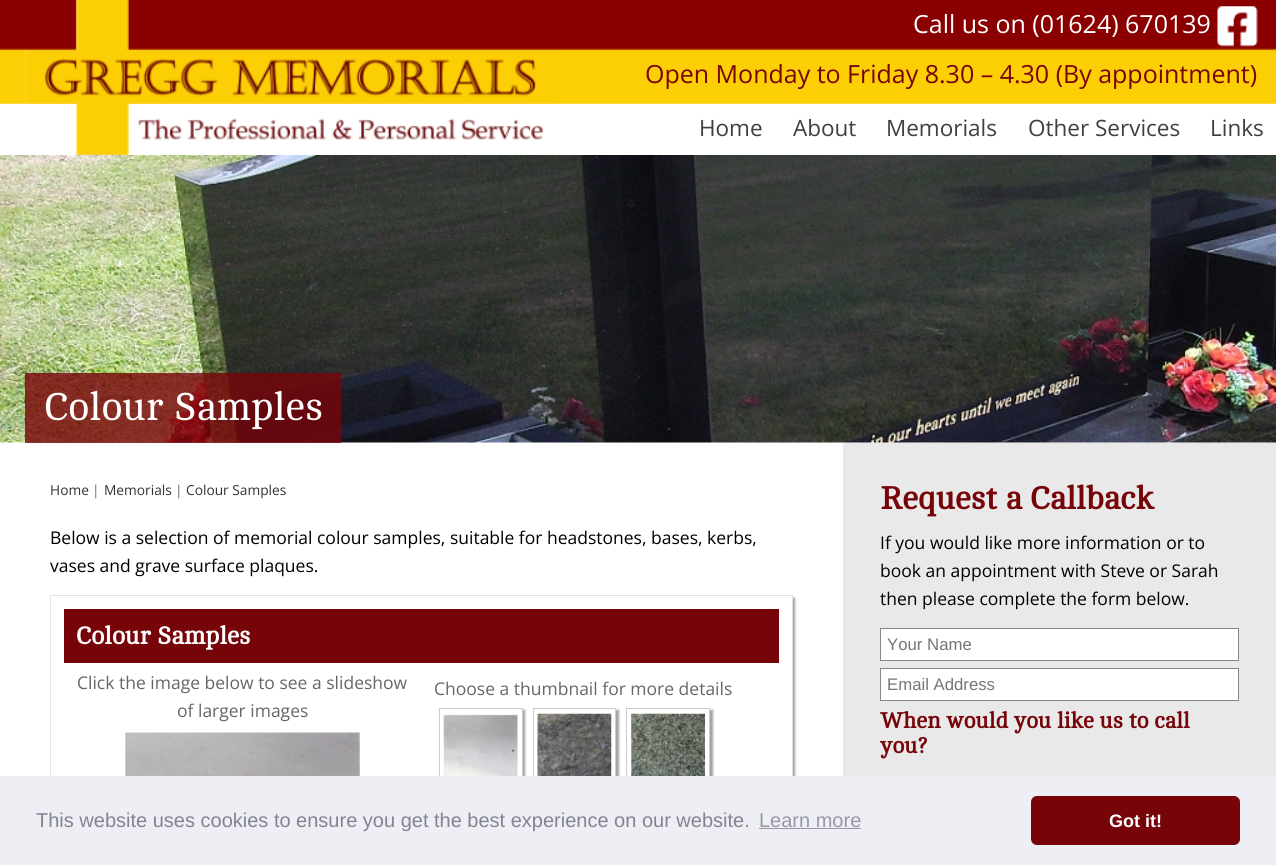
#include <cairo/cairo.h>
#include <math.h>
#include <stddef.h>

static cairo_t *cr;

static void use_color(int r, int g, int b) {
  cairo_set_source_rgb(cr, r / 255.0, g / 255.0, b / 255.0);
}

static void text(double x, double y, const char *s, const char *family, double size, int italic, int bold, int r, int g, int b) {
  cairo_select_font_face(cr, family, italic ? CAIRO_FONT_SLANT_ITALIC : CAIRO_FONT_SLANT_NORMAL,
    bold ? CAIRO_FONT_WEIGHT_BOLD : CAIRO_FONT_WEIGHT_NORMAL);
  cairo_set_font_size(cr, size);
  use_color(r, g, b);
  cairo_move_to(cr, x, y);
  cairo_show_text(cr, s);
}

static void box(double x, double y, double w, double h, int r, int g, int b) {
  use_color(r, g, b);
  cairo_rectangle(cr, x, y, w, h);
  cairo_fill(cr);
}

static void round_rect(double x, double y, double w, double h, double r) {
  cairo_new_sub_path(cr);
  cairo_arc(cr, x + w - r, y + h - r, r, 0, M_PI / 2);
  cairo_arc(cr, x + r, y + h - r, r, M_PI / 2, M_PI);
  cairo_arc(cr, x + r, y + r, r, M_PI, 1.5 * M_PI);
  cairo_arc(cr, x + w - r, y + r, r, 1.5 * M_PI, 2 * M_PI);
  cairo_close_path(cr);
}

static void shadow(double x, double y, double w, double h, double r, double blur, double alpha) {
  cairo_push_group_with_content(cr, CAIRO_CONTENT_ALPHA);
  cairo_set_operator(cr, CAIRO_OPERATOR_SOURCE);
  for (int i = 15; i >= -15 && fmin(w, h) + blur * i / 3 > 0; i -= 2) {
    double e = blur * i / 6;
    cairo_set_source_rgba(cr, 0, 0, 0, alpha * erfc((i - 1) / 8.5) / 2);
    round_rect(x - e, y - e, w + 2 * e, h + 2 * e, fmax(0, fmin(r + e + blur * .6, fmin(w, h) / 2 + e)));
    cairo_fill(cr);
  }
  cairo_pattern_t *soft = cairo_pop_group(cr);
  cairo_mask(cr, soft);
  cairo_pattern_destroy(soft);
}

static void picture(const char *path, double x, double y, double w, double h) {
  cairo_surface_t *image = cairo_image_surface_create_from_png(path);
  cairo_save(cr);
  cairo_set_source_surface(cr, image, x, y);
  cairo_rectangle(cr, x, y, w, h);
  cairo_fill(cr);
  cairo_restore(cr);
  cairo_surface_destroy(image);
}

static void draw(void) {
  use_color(255, 255, 255);
  cairo_paint(cr);
  picture("img_01.png", 0, 0, 1276, 104);
  picture("img_02.png", 25, 0, 530, 155);
  picture("img_03.png", 1217, 6, 41, 41);
  picture("img_04.png", 0, 155, 1276, 288);
  cairo_set_source_rgba(cr, 0.467, 0.016, 0.035, 0.8);
  cairo_rectangle(cr, 25, 373, 316, 70);
  cairo_fill(cr);
  use_color(162, 162, 162);
  shadow(53, 598, 742, 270, 0, 1, 1);
  box(51, 596, 741, 180, 255, 255, 255);
  cairo_rectangle(cr, 50.5, 595.5, 742, 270);
  use_color(226, 226, 226);
  cairo_set_line_width(cr, 1);
  cairo_stroke(cr);
  box(64, 609, 715, 54, 119, 4, 9);
  picture("img_05.png", 125, 732, 235, 44);
  use_color(162, 162, 162);
  shadow(441, 710, 84, 85, 0, 1, 1);
  box(440, 709, 82, 67, 255, 255, 255);
  cairo_rectangle(cr, 439.5, 708.5, 83, 84);
  use_color(204, 204, 204);
  cairo_stroke(cr);
  picture("img_06.png", 443, 714, 75, 62);
  use_color(162, 162, 162);
  shadow(535, 710, 84, 85, 0, 1, 1);
  box(534, 709, 81, 67, 255, 255, 255);
  cairo_rectangle(cr, 533.5, 708.5, 82, 84);
  use_color(204, 204, 204);
  cairo_stroke(cr);
  picture("img_07.png", 537, 712, 75, 64);
  use_color(162, 162, 162);
  shadow(629, 710, 84, 85, 0, 1, 1);
  box(627, 709, 82, 67, 255, 255, 255);
  cairo_rectangle(cr, 626.5, 708.5, 83, 84);
  use_color(204, 204, 204);
  cairo_stroke(cr);
  picture("img_08.png", 631, 712, 74, 64);
  box(843, 443, 433, 333, 233, 233, 233);
  use_color(255, 255, 255);
  cairo_rectangle(cr, 880.5, 628.5, 358, 32);
  cairo_fill_preserve(cr);
  use_color(134, 134, 134);
  cairo_stroke(cr);
  use_color(255, 255, 255);
  cairo_rectangle(cr, 880.5, 668.5, 358, 32);
  cairo_fill_preserve(cr);
  use_color(134, 134, 134);
  cairo_stroke(cr);
  box(0, 776, 1276, 89, 237, 239, 245);
  box(759, 828, 102, 1, 152, 153, 165);
  use_color(119, 4, 9);
  round_rect(1031, 796, 209, 49, 6);
  cairo_fill(cr);
  text(913, 33, "Call us on (01624) 670139", "Open Sans", 25, 0, 0, 255, 255, 255);
  text(645, 83, "Open Monday to Friday 8.30 – 4.30 (By appointment)", "Open Sans", 25, 0, 0, 119, 4, 9);
  text(699, 136, "Home", "Open Sans", 22.5, 0, 0, 64, 64, 64);
  text(793, 136, "About", "Open Sans", 22.5, 0, 0, 64, 64, 64);
  text(886, 136, "Memorials", "Open Sans", 22.5, 0, 0, 64, 64, 64);
  text(1028, 136, "Other Services", "Open Sans", 22.5, 0, 0, 64, 64, 64);
  text(1210, 136, "Links", "Open Sans", 22.5, 0, 0, 64, 64, 64);
  text(44, 420, "Colour Samples", "Cambo", 40, 0, 0, 255, 255, 255);
  text(50, 495, "Home", "Open Sans", 13.75, 0, 0, 51, 51, 51);
  text(92, 495, "|", "Open Sans", 13.75, 0, 0, 102, 102, 102);
  text(104, 495, "Memorials", "Open Sans", 13.75, 0, 0, 51, 51, 51);
  text(175, 495, "|", "Open Sans", 13.75, 0, 0, 102, 102, 102);
  text(186, 495, "Colour Samples", "Open Sans", 13.75, 0, 0, 51, 51, 51);
  text(50, 544, "Below is a selection of memorial colour samples, suitable for headstones, bases, kerbs,", "Open Sans", 17.5, 0, 0, 0, 0, 0);
  text(50, 572, "vases and grave surface plaques.", "Open Sans", 17.5, 0, 0, 0, 0, 0);
  text(76, 644, "Colour Samples", "Cambo", 25, 0, 1, 255, 255, 255);
  text(77, 689, "Click the image below to see a slideshow", "Open Sans", 17.5, 0, 0, 102, 102, 102);
  text(177, 717, "of larger images", "Open Sans", 17.5, 0, 0, 102, 102, 102);
  text(434, 695, "Choose a thumbnail for more details", "Open Sans", 17.5, 0, 0, 102, 102, 102);
  text(880, 509, "Request a Callback", "Cambo", 32.5, 0, 1, 119, 4, 9);
  text(880, 549, "If you would like more information or to", "Open Sans", 17.5, 0, 0, 0, 0, 0);
  text(880, 577, "book an appointment with Steve or Sarah", "Open Sans", 17.5, 0, 0, 0, 0, 0);
  text(880, 605, "then please complete the form below.", "Open Sans", 17.5, 0, 0, 0, 0, 0);
  text(887, 650, "Your Name", "Liberation Sans", 16.75, 0, 0, 117, 117, 117);
  text(887, 690, "Email Address", "Liberation Sans", 16.75, 0, 0, 117, 117, 117);
  text(880, 728, "When would you like us to call", "Cambo", 22.5, 0, 1, 119, 4, 9);
  text(880, 753, "you?", "Cambo", 22.5, 0, 1, 119, 4, 9);
  text(36, 827, "This website uses cookies to ensure you get the best experience on our website.", "Liberation Sans", 20, 0, 0, 131, 131, 145);
  text(759, 827, "Learn more", "Liberation Sans", 20, 0, 0, 152, 153, 165);
  text(1109, 827, "Got it!", "Liberation Sans", 18, 0, 1, 255, 255, 255);
}

int main(void) {
  cairo_surface_t *surface = cairo_image_surface_create(CAIRO_FORMAT_RGB24, 1276, 865);
  cr = cairo_create(surface);
  cairo_font_options_t *options = cairo_font_options_create();
  cairo_font_options_set_hint_metrics(options, CAIRO_HINT_METRICS_OFF);
  cairo_font_options_set_hint_style(options, CAIRO_HINT_STYLE_NONE);
  cairo_set_font_options(cr, options);
  cairo_set_miter_limit(cr, 4);
  draw();
  cairo_surface_write_to_png(surface, "out.png");
  cairo_font_options_destroy(options);
  cairo_destroy(cr);
  cairo_surface_destroy(surface);
  return 0;
}
